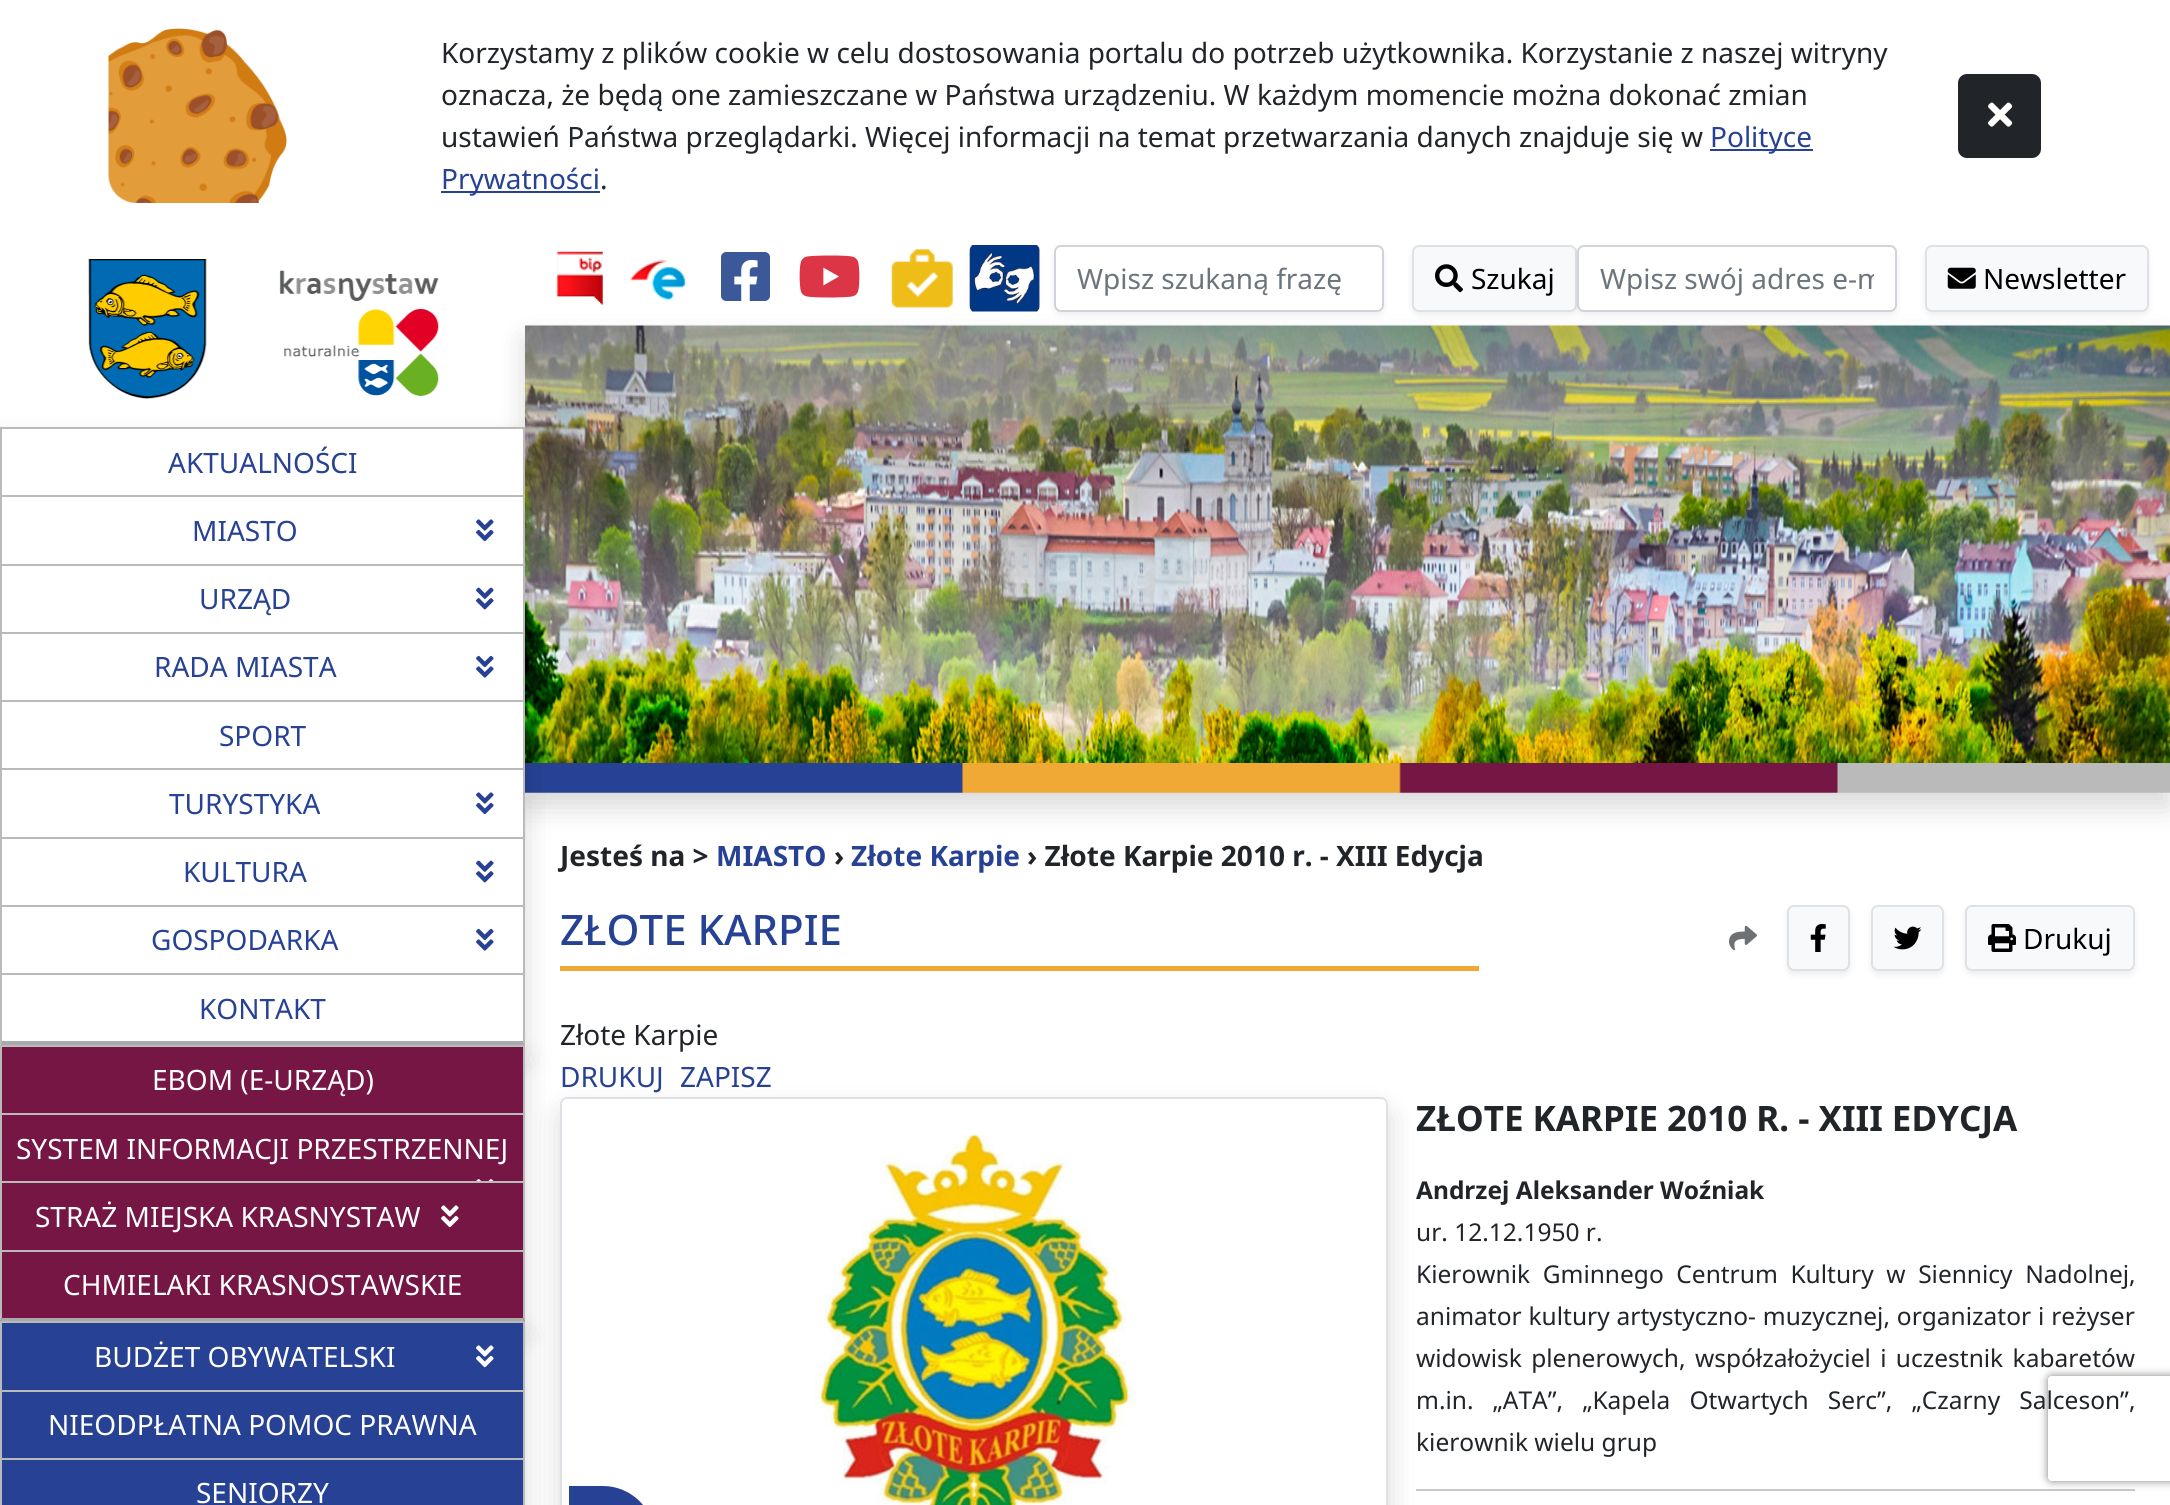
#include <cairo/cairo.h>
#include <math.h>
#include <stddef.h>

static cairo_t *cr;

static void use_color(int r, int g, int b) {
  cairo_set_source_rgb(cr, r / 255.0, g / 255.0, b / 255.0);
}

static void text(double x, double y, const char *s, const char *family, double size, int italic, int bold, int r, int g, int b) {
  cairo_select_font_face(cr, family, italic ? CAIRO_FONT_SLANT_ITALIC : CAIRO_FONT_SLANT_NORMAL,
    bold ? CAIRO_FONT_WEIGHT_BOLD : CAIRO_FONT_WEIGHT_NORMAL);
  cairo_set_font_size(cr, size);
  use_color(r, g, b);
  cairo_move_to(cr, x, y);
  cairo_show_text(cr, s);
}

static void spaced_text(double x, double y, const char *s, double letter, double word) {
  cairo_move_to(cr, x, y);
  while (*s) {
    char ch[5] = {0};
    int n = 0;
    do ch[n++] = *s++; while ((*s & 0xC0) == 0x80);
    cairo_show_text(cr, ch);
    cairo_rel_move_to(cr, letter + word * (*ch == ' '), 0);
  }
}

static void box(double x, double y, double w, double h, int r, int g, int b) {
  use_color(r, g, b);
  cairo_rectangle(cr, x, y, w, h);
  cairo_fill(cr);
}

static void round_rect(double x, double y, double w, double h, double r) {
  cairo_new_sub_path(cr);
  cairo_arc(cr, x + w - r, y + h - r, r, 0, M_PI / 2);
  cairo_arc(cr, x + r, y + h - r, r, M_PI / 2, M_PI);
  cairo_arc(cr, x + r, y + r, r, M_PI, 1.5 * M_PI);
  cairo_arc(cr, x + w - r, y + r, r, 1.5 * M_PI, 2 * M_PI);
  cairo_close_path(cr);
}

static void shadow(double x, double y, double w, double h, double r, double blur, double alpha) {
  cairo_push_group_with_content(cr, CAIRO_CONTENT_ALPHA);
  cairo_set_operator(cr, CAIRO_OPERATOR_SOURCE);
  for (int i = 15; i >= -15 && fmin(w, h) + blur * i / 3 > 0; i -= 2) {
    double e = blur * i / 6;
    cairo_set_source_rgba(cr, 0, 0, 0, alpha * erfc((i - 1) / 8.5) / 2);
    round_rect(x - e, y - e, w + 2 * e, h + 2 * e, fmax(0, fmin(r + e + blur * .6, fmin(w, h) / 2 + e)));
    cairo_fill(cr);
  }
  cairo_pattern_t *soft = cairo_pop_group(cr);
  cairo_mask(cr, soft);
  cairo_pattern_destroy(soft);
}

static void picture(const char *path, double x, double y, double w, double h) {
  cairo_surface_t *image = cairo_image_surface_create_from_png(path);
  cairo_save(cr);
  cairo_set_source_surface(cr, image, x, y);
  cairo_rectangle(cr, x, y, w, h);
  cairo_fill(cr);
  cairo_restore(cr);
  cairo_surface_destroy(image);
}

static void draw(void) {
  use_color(255, 255, 255);
  cairo_paint(cr);
  picture("img_01.png", 108, 28, 179, 175);
  box(1710, 149, 103, 2, 39, 66, 149);
  box(441, 191, 159, 2, 39, 66, 149);
  use_color(33, 37, 41);
  round_rect(1959, 75, 81, 82, 8);
  cairo_fill_preserve(cr);
  cairo_stroke(cr);
  picture("img_02.png", 1988, 102, 25, 25);
  use_color(0, 0, 0);
  shadow(525, 340, 1645, 467, 0, 14, 0.15);
  picture("img_18.png", 525, 325, 1645, 438);
  picture("img_19.png", 525, 763, 1645, 30);
  box(560, 966, 919, 5, 240, 169, 53);
  use_color(0, 0, 0);
  shadow(560, 1111, 828, 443, 7, 14, 0.15);
  use_color(255, 255, 255);
  round_rect(561, 1098, 826, 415, 6);
  cairo_fill_preserve(cr);
  use_color(222, 226, 230);
  cairo_stroke(cr);
  use_color(0, 0, 0);
  shadow(0, 441, 525, 618, 0, 14, 0.15);
  picture("img_03.png", 88, 259, 351, 140);
  shadow(0, 1059, 525, 276, 0, 14, 0.15);
  box(0, 429, 525, 616, 255, 255, 255);
  box(0, 427, 525, 2, 187, 186, 187);
  box(523, 427, 2, 68, 187, 186, 187);
  box(0, 427, 2, 68, 187, 186, 187);
  box(0, 495, 525, 2, 187, 186, 187);
  box(523, 495, 2, 69, 187, 186, 187);
  box(0, 495, 2, 69, 187, 186, 187);
  picture("img_04.png", 476, 519, 18, 23);
  box(0, 564, 525, 2, 187, 186, 187);
  box(523, 564, 2, 68, 187, 186, 187);
  box(0, 564, 2, 68, 187, 186, 187);
  picture("img_05.png", 476, 587, 18, 23);
  box(0, 632, 525, 2, 187, 186, 187);
  box(523, 632, 2, 68, 187, 186, 187);
  box(0, 632, 2, 68, 187, 186, 187);
  picture("img_06.png", 476, 655, 18, 23);
  box(0, 700, 525, 2, 187, 186, 187);
  box(523, 700, 2, 68, 187, 186, 187);
  box(0, 700, 2, 68, 187, 186, 187);
  box(0, 768, 525, 2, 187, 186, 187);
  box(523, 768, 2, 69, 187, 186, 187);
  box(0, 768, 2, 69, 187, 186, 187);
  picture("img_04.png", 476, 792, 18, 23);
  box(0, 837, 525, 2, 187, 186, 187);
  box(523, 837, 2, 68, 187, 186, 187);
  box(0, 837, 2, 68, 187, 186, 187);
  picture("img_05.png", 476, 860, 18, 23);
  box(0, 905, 525, 2, 187, 186, 187);
  box(523, 905, 2, 68, 187, 186, 187);
  box(0, 905, 2, 68, 187, 186, 187);
  picture("img_06.png", 476, 928, 18, 23);
  box(0, 973, 525, 2, 187, 186, 187);
  cairo_new_path(cr);
  cairo_move_to(cr, 525, 973);
  cairo_line_to(cr, 525, 1045);
  cairo_line_to(cr, 523, 1041);
  cairo_line_to(cr, 523, 975);
  cairo_close_path(cr);
  cairo_fill(cr);
  use_color(170, 170, 170);
  cairo_new_path(cr);
  cairo_move_to(cr, 525, 1045);
  cairo_line_to(cr, 0, 1045);
  cairo_line_to(cr, 2, 1041);
  cairo_line_to(cr, 523, 1041);
  cairo_close_path(cr);
  cairo_fill(cr);
  use_color(187, 186, 187);
  cairo_new_path(cr);
  cairo_move_to(cr, 0, 1045);
  cairo_line_to(cr, 0, 973);
  cairo_line_to(cr, 2, 975);
  cairo_line_to(cr, 2, 1041);
  cairo_close_path(cr);
  cairo_fill(cr);
  use_color(0, 0, 0);
  shadow(0, 1335, 525, 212, 0, 14, 0.15);
  box(0, 1047, 525, 274, 117, 22, 69);
  box(0, 1045, 525, 2, 187, 186, 187);
  box(523, 1045, 2, 68, 187, 186, 187);
  box(0, 1045, 2, 68, 187, 186, 187);
  box(0, 1113, 525, 2, 187, 186, 187);
  box(523, 1113, 2, 68, 187, 186, 187);
  box(0, 1113, 2, 68, 187, 186, 187);
  picture("img_07.png", 476, 1179, 18, 2);
  box(0, 1181, 525, 2, 187, 186, 187);
  box(523, 1181, 2, 69, 187, 186, 187);
  box(0, 1181, 2, 69, 187, 186, 187);
  picture("img_08.png", 441, 1205, 18, 23);
  box(0, 1250, 525, 2, 187, 186, 187);
  cairo_new_path(cr);
  cairo_move_to(cr, 525, 1250);
  cairo_line_to(cr, 525, 1321);
  cairo_line_to(cr, 523, 1318);
  cairo_line_to(cr, 523, 1251);
  cairo_close_path(cr);
  cairo_fill(cr);
  use_color(170, 170, 170);
  cairo_new_path(cr);
  cairo_move_to(cr, 525, 1321);
  cairo_line_to(cr, 0, 1321);
  cairo_line_to(cr, 2, 1318);
  cairo_line_to(cr, 523, 1318);
  cairo_close_path(cr);
  cairo_fill(cr);
  use_color(187, 186, 187);
  cairo_new_path(cr);
  cairo_move_to(cr, 0, 1321);
  cairo_line_to(cr, 0, 1250);
  cairo_line_to(cr, 2, 1251);
  cairo_line_to(cr, 2, 1318);
  cairo_close_path(cr);
  cairo_fill(cr);
  box(2, 1323, 521, 182, 39, 66, 149);
  box(0, 1321, 525, 2, 187, 186, 187);
  box(523, 1321, 2, 69, 187, 186, 187);
  box(0, 1321, 2, 69, 187, 186, 187);
  picture("img_09.png", 476, 1345, 18, 23);
  box(0, 1390, 525, 2, 187, 186, 187);
  box(523, 1390, 2, 68, 187, 186, 187);
  box(0, 1390, 2, 68, 187, 186, 187);
  box(0, 1458, 525, 2, 187, 186, 187);
  box(523, 1458, 2, 47, 187, 186, 187);
  box(0, 1458, 2, 47, 187, 186, 187);
  picture("img_10.png", 556, 251, 47, 54);
  picture("img_11.png", 630, 260, 57, 42);
  picture("img_12.png", 721, 252, 49, 49);
  picture("img_13.png", 799, 255, 61, 43);
  picture("img_14.png", 891, 249, 62, 59);
  picture("img_15.png", 969, 245, 71, 67);
  cairo_save(cr);
  cairo_set_fill_rule(cr, CAIRO_FILL_RULE_EVEN_ODD);
  cairo_new_path(cr);
  cairo_move_to(cr, 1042, 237);
  cairo_line_to(cr, 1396, 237);
  cairo_line_to(cr, 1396, 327);
  cairo_line_to(cr, 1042, 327);
  cairo_close_path(cr);
  cairo_move_to(cr, 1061, 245);
  cairo_line_to(cr, 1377, 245);
  cairo_curve_to(cr, 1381, 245, 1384, 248, 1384, 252);
  cairo_line_to(cr, 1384, 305);
  cairo_curve_to(cr, 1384, 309, 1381, 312, 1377, 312);
  cairo_line_to(cr, 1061, 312);
  cairo_curve_to(cr, 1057, 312, 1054, 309, 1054, 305);
  cairo_line_to(cr, 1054, 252);
  cairo_curve_to(cr, 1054, 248, 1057, 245, 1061, 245);
  cairo_close_path(cr);
  cairo_clip(cr);
  use_color(0, 0, 0);
  shadow(1054, 249, 330, 66, 7, 3.5, 0.07);
  cairo_restore(cr);
  round_rect(1055, 246, 328, 65, 6);
  use_color(206, 212, 218);
  cairo_stroke(cr);
  use_color(0, 0, 0);
  shadow(1412, 249, 165, 66, 7, 3.5, 0.07);
  use_color(248, 249, 250);
  round_rect(1413, 246, 163, 65, 6);
  cairo_fill_preserve(cr);
  use_color(222, 226, 230);
  cairo_stroke(cr);
  picture("img_16.png", 1435, 264, 28, 29);
  use_color(0, 0, 0);
  shadow(1577, 249, 320, 66, 7, 3.5, 0.07);
  use_color(255, 255, 255);
  round_rect(1578, 246, 318, 65, 6);
  cairo_fill_preserve(cr);
  use_color(206, 212, 218);
  cairo_stroke(cr);
  use_color(0, 0, 0);
  shadow(1925, 249, 224, 66, 7, 3.5, 0.07);
  use_color(248, 249, 250);
  round_rect(1926, 246, 222, 65, 6);
  cairo_fill_preserve(cr);
  use_color(222, 226, 230);
  cairo_stroke(cr);
  picture("img_17.png", 1947, 267, 29, 22);
  picture("img_20.png", 1729, 925, 28, 26);
  use_color(0, 0, 0);
  shadow(1787, 908, 63, 67, 7, 3.5, 0.07);
  use_color(248, 249, 250);
  round_rect(1788, 906, 61, 64, 6);
  cairo_fill_preserve(cr);
  use_color(222, 226, 230);
  cairo_stroke(cr);
  picture("img_21.png", 1810, 924, 16, 28);
  use_color(0, 0, 0);
  shadow(1871, 908, 73, 67, 7, 3.5, 0.07);
  use_color(248, 249, 250);
  round_rect(1872, 906, 71, 64, 6);
  cairo_fill_preserve(cr);
  use_color(222, 226, 230);
  cairo_stroke(cr);
  picture("img_22.png", 1893, 926, 29, 24);
  use_color(0, 0, 0);
  shadow(1965, 908, 170, 67, 7, 3.5, 0.07);
  use_color(248, 249, 250);
  round_rect(1966, 906, 168, 64, 6);
  cairo_fill_preserve(cr);
  use_color(222, 226, 230);
  cairo_stroke(cr);
  picture("img_23.png", 1988, 924, 28, 28);
  picture("img_24.png", 814, 1134, 322, 371);
  use_color(39, 66, 149);
  cairo_new_path(cr);
  cairo_move_to(cr, 569, 1486);
  cairo_line_to(cr, 603, 1486);
  cairo_curve_to(cr, 631.5, 1486, 655, 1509.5, 655, 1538);
  cairo_line_to(cr, 569, 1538);
  cairo_close_path(cr);
  cairo_fill(cr);
  box(1416, 1489, 719, 2, 199, 200, 201);
  cairo_save(cr);
  cairo_set_fill_rule(cr, CAIRO_FILL_RULE_EVEN_ODD);
  cairo_new_path(cr);
  cairo_move_to(cr, 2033, 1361);
  cairo_line_to(cr, 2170, 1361);
  cairo_line_to(cr, 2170, 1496);
  cairo_line_to(cr, 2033, 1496);
  cairo_close_path(cr);
  cairo_move_to(cr, 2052, 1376);
  cairo_line_to(cr, 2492, 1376);
  cairo_curve_to(cr, 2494, 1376, 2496, 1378, 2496, 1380);
  cairo_line_to(cr, 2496, 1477);
  cairo_curve_to(cr, 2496, 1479, 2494, 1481, 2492, 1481);
  cairo_line_to(cr, 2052, 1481);
  cairo_curve_to(cr, 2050, 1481, 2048, 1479, 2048, 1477);
  cairo_line_to(cr, 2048, 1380);
  cairo_curve_to(cr, 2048, 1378, 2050, 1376, 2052, 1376);
  cairo_close_path(cr);
  cairo_clip(cr);
  use_color(128, 128, 128);
  shadow(2048, 1376, 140, 105, 4, 4.5, 1);
  cairo_restore(cr);
  text(441, 63, "Korzystamy z plików cookie w celu dostosowania portalu do potrzeb użytkownika. Korzystanie z naszej witryny", "Noto Sans", 28, 0, 0, 33, 37, 41);
  text(441, 105, "oznacza, że będą one zamieszczane w Państwa urządzeniu. W każdym momencie można dokonać zmian", "Noto Sans", 28, 0, 0, 33, 37, 41);
  text(441, 147, "ustawień Państwa przeglądarki. Więcej informacji na temat przetwarzania danych znajduje się w", "Noto Sans", 28, 0, 0, 33, 37, 41);
  text(1710, 147, "Polityce", "Noto Sans", 28, 0, 0, 39, 66, 149);
  text(441, 189, "Prywatności", "Noto Sans", 28, 0, 0, 39, 66, 149);
  text(600, 189, ".", "Noto Sans", 28, 0, 0, 33, 37, 41);
  text(168, 473, "AKTUALNOŚCI", "Noto Sans", 28, 0, 0, 39, 66, 149);
  text(192, 541, "MIASTO", "Noto Sans", 28, 0, 0, 39, 66, 149);
  text(199, 609, "URZĄD", "Noto Sans", 28, 0, 0, 39, 66, 149);
  text(154, 677, "RADA MIASTA", "Noto Sans", 28, 0, 0, 39, 66, 149);
  text(219, 746, "SPORT", "Noto Sans", 28, 0, 0, 39, 66, 149);
  text(169, 814, "TURYSTYKA", "Noto Sans", 28, 0, 0, 39, 66, 149);
  text(183, 882, "KULTURA", "Noto Sans", 28, 0, 0, 39, 66, 149);
  text(151, 950, "GOSPODARKA", "Noto Sans", 28, 0, 0, 39, 66, 149);
  text(199, 1019, "KONTAKT", "Noto Sans", 28, 0, 0, 39, 66, 149);
  text(152, 1090, "EBOM (E-URZĄD)", "Noto Sans", 28, 0, 0, 255, 255, 255);
  text(16, 1159, "SYSTEM INFORMACJI PRZESTRZENNEJ", "Noto Sans", 28, 0, 0, 255, 255, 255);
  text(35, 1227, "STRAŻ MIEJSKA KRASNYSTAW", "Noto Sans", 28, 0, 0, 255, 255, 255);
  text(63, 1295, "CHMIELAKI KRASNOSTAWSKIE", "Noto Sans", 28, 0, 0, 255, 255, 255);
  text(94, 1367, "BUDŻET OBYWATELSKI", "Noto Sans", 28, 0, 0, 255, 255, 255);
  text(48, 1435, "NIEODPŁATNA POMOC PRAWNA", "Noto Sans", 28, 0, 0, 255, 255, 255);
  text(196, 1503, "SENIORZY", "Noto Sans", 28, 0, 0, 255, 255, 255);
  text(1077, 289, "Wpisz szukaną frazę", "Noto Sans", 28, 0, 0, 108, 117, 125);
  text(1471, 289, "Szukaj", "Noto Sans", 28, 0, 0, 0, 0, 0);
  cairo_save(cr);
  cairo_rectangle(cr, 1600, 259, 274, 39);
  cairo_clip(cr);
  text(1600, 289, "Wpisz swój adres e-m", "Noto Sans", 28, 0, 0, 108, 117, 125);
  cairo_restore(cr);
  text(1983, 289, "Newsletter", "Noto Sans", 28, 0, 0, 0, 0, 0);
  text(560, 866, "Jesteś na >", "Noto Sans", 28, 0, 1, 33, 37, 41);
  text(716, 866, "MIASTO", "Noto Sans", 28, 0, 1, 39, 66, 149);
  text(834, 866, "›", "Noto Sans", 28, 0, 1, 33, 37, 41);
  text(851, 866, "Złote Karpie", "Noto Sans", 28, 0, 1, 39, 66, 149);
  text(1027, 866, "› Złote Karpie 2010 r. - XIII Edycja", "Noto Sans", 28, 0, 1, 33, 37, 41);
  text(560, 945, "ZŁOTE KARPIE", "Noto Sans Medium", 42, 0, 0, 39, 66, 149);
  text(2023, 949, "Drukuj", "Noto Sans", 28, 0, 0, 0, 0, 0);
  text(560, 1045, "Złote Karpie", "Noto Sans", 28, 0, 0, 33, 37, 41);
  text(560, 1087, "DRUKUJ", "Noto Sans", 28, 0, 0, 39, 66, 149);
  text(680, 1087, "ZAPISZ", "Noto Sans", 28, 0, 0, 39, 66, 149);
  text(1416, 1131, "ZŁOTE KARPIE 2010 R. - XIII EDYCJA", "Noto Sans", 35, 0, 1, 33, 37, 41);
  text(1416, 1199, "Andrzej Aleksander Woźniak", "Noto Sans", 24.5, 0, 1, 33, 37, 41);
  text(1416, 1241, "ur. 12.12.1950 r.", "Noto Sans", 24.5, 0, 0, 33, 37, 41);
  spaced_text(1416, 1283, "Kierownik Gminnego Centrum Kultury w Siennicy Nadolnej,", 0, 6.25);
  spaced_text(1416, 1325, "animator kultury artystyczno- muzycznej, organizator i reżyser", 0, 0.5);
  spaced_text(1416, 1367, "widowisk plenerowych, współzałożyciel i uczestnik kabaretów", 0, 3);
  spaced_text(1416, 1409, "m.in. „ATA”, „Kapela Otwartych Serc”, „Czarny Salceson”,", 0, 12.75);
  text(1416, 1451, "kierownik wielu grup", "Noto Sans", 24.5, 0, 0, 33, 37, 41);
}

int main(void) {
  cairo_surface_t *surface = cairo_image_surface_create(CAIRO_FORMAT_RGB24, 2170, 1505);
  cr = cairo_create(surface);
  cairo_font_options_t *options = cairo_font_options_create();
  cairo_font_options_set_hint_metrics(options, CAIRO_HINT_METRICS_OFF);
  cairo_font_options_set_hint_style(options, CAIRO_HINT_STYLE_NONE);
  cairo_set_font_options(cr, options);
  cairo_set_miter_limit(cr, 4);
  draw();
  cairo_surface_write_to_png(surface, "out.png");
  cairo_font_options_destroy(options);
  cairo_destroy(cr);
  cairo_surface_destroy(surface);
  return 0;
}
